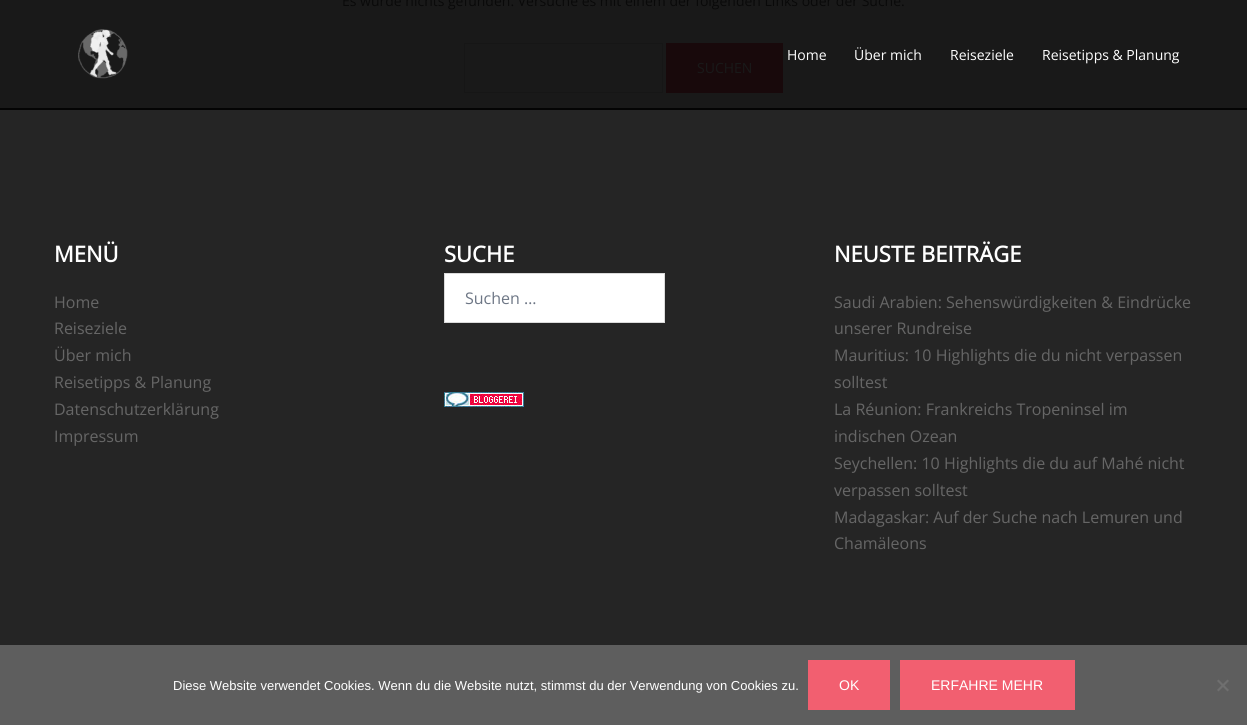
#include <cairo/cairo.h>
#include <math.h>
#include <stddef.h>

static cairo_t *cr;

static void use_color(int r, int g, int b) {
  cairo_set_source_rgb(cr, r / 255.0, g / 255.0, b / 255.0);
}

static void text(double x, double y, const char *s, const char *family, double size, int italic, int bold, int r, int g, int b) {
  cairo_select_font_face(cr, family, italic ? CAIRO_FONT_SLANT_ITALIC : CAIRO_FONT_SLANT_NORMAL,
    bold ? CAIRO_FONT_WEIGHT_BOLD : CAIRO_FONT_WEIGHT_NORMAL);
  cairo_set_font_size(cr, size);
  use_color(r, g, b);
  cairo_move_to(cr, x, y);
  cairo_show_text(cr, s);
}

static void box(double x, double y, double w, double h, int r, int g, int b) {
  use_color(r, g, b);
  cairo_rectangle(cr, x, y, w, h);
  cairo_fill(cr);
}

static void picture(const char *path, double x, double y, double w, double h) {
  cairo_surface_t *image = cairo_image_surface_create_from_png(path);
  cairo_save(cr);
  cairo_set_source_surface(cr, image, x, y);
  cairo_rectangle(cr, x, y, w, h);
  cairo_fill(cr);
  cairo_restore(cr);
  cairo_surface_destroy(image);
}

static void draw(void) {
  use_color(25, 25, 25);
  cairo_paint(cr);
  cairo_rectangle(cr, 464.5, 43.5, 198, 49);
  use_color(22, 22, 22);
  cairo_set_line_width(cr, 1);
  cairo_stroke(cr);
  box(666, 43, 117, 50, 24, 9, 11);
  picture("img_01.png", 78, 29, 50, 50);
  box(0, 110, 1247, 535, 37, 37, 37);
  box(0, 108, 1247, 2, 4, 4, 4);
  use_color(255, 255, 255);
  cairo_rectangle(cr, 444.5, 273.5, 220, 49);
  cairo_fill_preserve(cr);
  use_color(219, 219, 219);
  cairo_stroke(cr);
  picture("img_02.png", 444, 392, 80, 15);
  box(0, 645, 1247, 80, 94, 94, 94);
  box(808, 660, 82, 50, 242, 95, 112);
  box(900, 660, 175, 50, 242, 95, 112);
  use_color(111, 111, 111);
  cairo_new_path(cr);
  cairo_move_to(cr, 1227.5, 679.5);
  cairo_line_to(cr, 1229, 681);
  cairo_line_to(cr, 1218.5, 691.5);
  cairo_line_to(cr, 1217, 690);
  cairo_close_path(cr);
  cairo_fill(cr);
  cairo_new_path(cr);
  cairo_move_to(cr, 1217, 681);
  cairo_line_to(cr, 1218.5, 679.5);
  cairo_line_to(cr, 1229, 690);
  cairo_line_to(cr, 1227.5, 691.5);
  cairo_close_path(cr);
  cairo_fill(cr);
  text(342, 6, "Es wurde nichts gefunden. Versuche es mit einem der folgenden Links oder der Suche.", "Open Sans", 14, 0, 0, 9, 9, 9);
  text(697, 73, "SUCHEN", "Open Sans", 14, 0, 0, 25, 25, 25);
  text(787, 60, "Home", "Open Sans", 14, 0, 0, 255, 255, 255);
  text(854, 60, "Über mich", "Open Sans", 14, 0, 0, 255, 255, 255);
  text(950, 60, "Reiseziele", "Open Sans", 14, 0, 0, 255, 255, 255);
  text(1042, 60, "Reisetipps & Planung", "Open Sans", 14, 0, 0, 255, 255, 255);
  text(54, 262, "MENÜ", "Open Sans", 22, 0, 1, 255, 255, 255);
  text(54, 308, "Home", "Open Sans", 16, 0, 0, 102, 102, 102);
  text(54, 334, "Reiseziele", "Open Sans", 16, 0, 0, 102, 102, 102);
  text(54, 361, "Über mich", "Open Sans", 16, 0, 0, 102, 102, 102);
  text(54, 388, "Reisetipps & Planung", "Open Sans", 16, 0, 0, 102, 102, 102);
  text(54, 415, "Datenschutzerklärung", "Open Sans", 16, 0, 0, 102, 102, 102);
  text(54, 442, "Impressum", "Open Sans", 16, 0, 0, 102, 102, 102);
  text(444, 262, "SUCHE", "Open Sans", 22, 0, 1, 255, 255, 255);
  text(465, 304, "Suchen …", "Open Sans", 16, 0, 0, 109, 118, 133);
  text(834, 262, "NEUSTE BEITRÄGE", "Open Sans", 22, 0, 1, 255, 255, 255);
  text(834, 308, "Saudi Arabien: Sehenswürdigkeiten & Eindrücke", "Open Sans", 16, 0, 0, 102, 102, 102);
  text(834, 334, "unserer Rundreise", "Open Sans", 16, 0, 0, 102, 102, 102);
  text(834, 361, "Mauritius: 10 Highlights die du nicht verpassen", "Open Sans", 16, 0, 0, 102, 102, 102);
  text(834, 388, "solltest", "Open Sans", 16, 0, 0, 102, 102, 102);
  text(834, 415, "La Réunion: Frankreichs Tropeninsel im", "Open Sans", 16, 0, 0, 102, 102, 102);
  text(834, 442, "indischen Ozean", "Open Sans", 16, 0, 0, 102, 102, 102);
  text(834, 469, "Seychellen: 10 Highlights die du auf Mahé nicht", "Open Sans", 16, 0, 0, 102, 102, 102);
  text(834, 496, "verpassen solltest", "Open Sans", 16, 0, 0, 102, 102, 102);
  text(834, 523, "Madagaskar: Auf der Suche nach Lemuren und", "Open Sans", 16, 0, 0, 102, 102, 102);
  text(834, 549, "Chamäleons", "Open Sans", 16, 0, 0, 102, 102, 102);
  text(173, 690, "Diese Website verwendet Cookies. Wenn du die Website nutzt, stimmst du der Verwendung von Cookies zu.", "Liberation Sans", 13, 0, 0, 255, 255, 255);
  text(839, 690, "OK", "Liberation Sans", 14, 0, 0, 255, 255, 255);
  text(931, 690, "ERFAHRE MEHR", "Liberation Sans", 14, 0, 0, 255, 255, 255);
}

int main(void) {
  cairo_surface_t *surface = cairo_image_surface_create(CAIRO_FORMAT_RGB24, 1247, 725);
  cr = cairo_create(surface);
  cairo_font_options_t *options = cairo_font_options_create();
  cairo_font_options_set_hint_metrics(options, CAIRO_HINT_METRICS_OFF);
  cairo_font_options_set_hint_style(options, CAIRO_HINT_STYLE_NONE);
  cairo_set_font_options(cr, options);
  cairo_set_miter_limit(cr, 4);
  draw();
  cairo_surface_write_to_png(surface, "out.png");
  cairo_font_options_destroy(options);
  cairo_destroy(cr);
  cairo_surface_destroy(surface);
  return 0;
}
